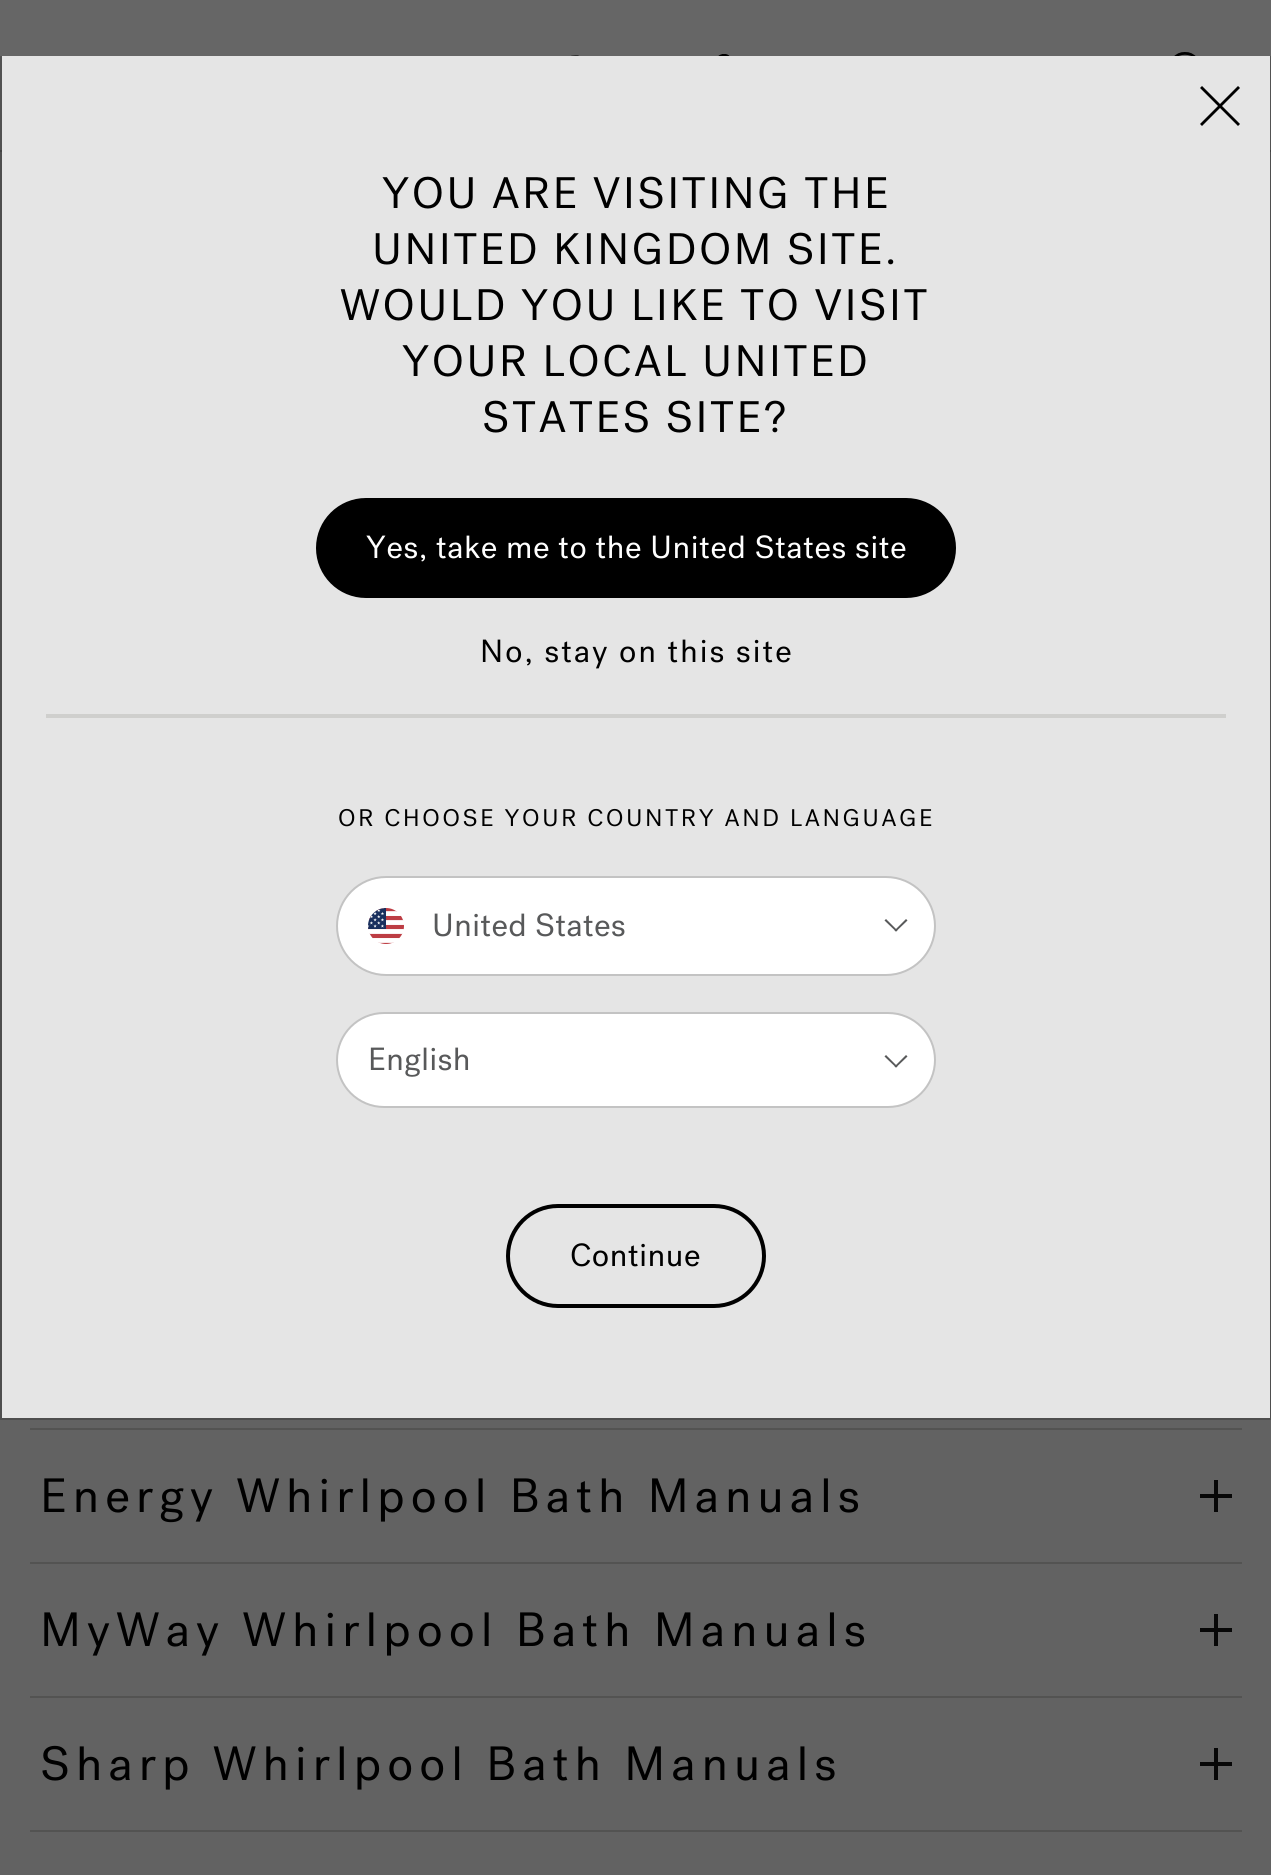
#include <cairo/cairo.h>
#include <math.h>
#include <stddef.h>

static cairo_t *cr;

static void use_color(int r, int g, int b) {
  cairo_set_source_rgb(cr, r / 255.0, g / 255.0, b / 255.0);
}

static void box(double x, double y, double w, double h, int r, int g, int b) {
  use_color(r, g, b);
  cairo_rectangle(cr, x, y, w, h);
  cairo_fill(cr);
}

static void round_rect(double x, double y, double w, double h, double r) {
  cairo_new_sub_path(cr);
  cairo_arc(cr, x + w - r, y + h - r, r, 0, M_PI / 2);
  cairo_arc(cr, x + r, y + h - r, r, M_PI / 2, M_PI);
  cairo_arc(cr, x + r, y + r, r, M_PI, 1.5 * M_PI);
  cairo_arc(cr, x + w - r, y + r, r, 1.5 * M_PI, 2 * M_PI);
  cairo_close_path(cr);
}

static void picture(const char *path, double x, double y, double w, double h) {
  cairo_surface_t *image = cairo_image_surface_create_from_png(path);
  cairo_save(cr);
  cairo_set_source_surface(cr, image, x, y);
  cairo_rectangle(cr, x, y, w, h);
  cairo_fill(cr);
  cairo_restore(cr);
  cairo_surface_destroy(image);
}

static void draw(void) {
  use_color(98, 98, 98);
  cairo_paint(cr);
  box(0, 0, 1271, 150, 102, 102, 102);
  box(0, 150, 1271, 2, 83, 83, 82);
  picture("img_01.png", 571, 54, 159, 2);
  picture("img_02.png", 1174, 52, 22, 4);
  box(30, 1428, 1212, 2, 83, 83, 82);
  box(30, 1562, 1212, 2, 83, 83, 82);
  picture("img_03.png", 44, 1478, 815, 45);
  box(1214, 1480, 4, 32, 7, 7, 7);
  box(1200, 1494, 32, 4, 7, 7, 7);
  box(30, 1696, 1212, 2, 83, 83, 82);
  picture("img_04.png", 44, 1612, 821, 44);
  box(1214, 1614, 4, 32, 7, 7, 7);
  box(1200, 1628, 32, 4, 7, 7, 7);
  box(30, 1830, 1212, 2, 83, 83, 82);
  picture("img_05.png", 42, 1745, 793, 45);
  box(1214, 1748, 4, 32, 7, 7, 7);
  box(1200, 1762, 32, 4, 7, 7, 7);
  box(2, 56, 1268, 1362, 229, 229, 229);
  cairo_set_source_rgba(cr, 0, 0, 0, 0.2);
  cairo_new_path(cr);
  cairo_move_to(cr, 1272, 56);
  cairo_line_to(cr, 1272, 1420);
  cairo_line_to(cr, 1270, 1418);
  cairo_line_to(cr, 1270, 56);
  cairo_close_path(cr);
  cairo_fill(cr);
  cairo_new_path(cr);
  cairo_move_to(cr, 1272, 1420);
  cairo_line_to(cr, 0, 1420);
  cairo_line_to(cr, 2, 1418);
  cairo_line_to(cr, 1270, 1418);
  cairo_close_path(cr);
  cairo_fill(cr);
  cairo_new_path(cr);
  cairo_move_to(cr, 0, 1420);
  cairo_line_to(cr, 0, 56);
  cairo_line_to(cr, 2, 56);
  cairo_line_to(cr, 2, 1418);
  cairo_close_path(cr);
  cairo_fill(cr);
  use_color(0, 0, 0);
  cairo_set_fill_rule(cr, CAIRO_FILL_RULE_EVEN_ODD);
  cairo_new_path(cr);
  cairo_move_to(cr, 1240, 88);
  cairo_line_to(cr, 1238, 86);
  cairo_line_to(cr, 1220, 104);
  cairo_line_to(cr, 1202, 86);
  cairo_line_to(cr, 1200, 88);
  cairo_line_to(cr, 1218, 106);
  cairo_line_to(cr, 1200, 124);
  cairo_line_to(cr, 1202, 126);
  cairo_line_to(cr, 1220, 108);
  cairo_line_to(cr, 1238, 126);
  cairo_line_to(cr, 1240, 124);
  cairo_line_to(cr, 1222, 106);
  cairo_close_path(cr);
  cairo_fill(cr);
  picture("img_06.png", 382, 176, 505, 33);
  picture("img_07.png", 375, 232, 519, 33);
  picture("img_08.png", 340, 288, 587, 33);
  picture("img_09.png", 402, 344, 464, 33);
  picture("img_10.png", 484, 400, 301, 33);
  round_rect(317, 499, 638, 98, 49);
  cairo_fill_preserve(cr);
  cairo_stroke(cr);
  picture("img_11.png", 366, 535, 540, 27);
  picture("img_12.png", 482, 639, 309, 30);
  box(46, 714, 1180, 4, 207, 207, 205);
  picture("img_13.png", 339, 808, 593, 19);
  use_color(255, 255, 255);
  round_rect(338, 878, 596, 96, 48);
  cairo_fill(cr);
  round_rect(337, 877, 598, 98, 49);
  cairo_set_source_rgba(cr, 0, 0, 0, 0.15);
  cairo_stroke(cr);
  picture("img_14.png", 368, 908, 36, 36);
  picture("img_15.png", 434, 913, 191, 24);
  use_color(88, 89, 90);
  cairo_set_fill_rule(cr, CAIRO_FILL_RULE_WINDING);
  cairo_new_path(cr);
  cairo_move_to(cr, 906, 919);
  cairo_line_to(cr, 907.5, 920.5);
  cairo_line_to(cr, 896, 931.5);
  cairo_line_to(cr, 894.5, 930.5);
  cairo_close_path(cr);
  cairo_fill(cr);
  cairo_new_path(cr);
  cairo_move_to(cr, 886, 919);
  cairo_line_to(cr, 897.5, 930.5);
  cairo_line_to(cr, 896, 931.5);
  cairo_line_to(cr, 884.5, 920.5);
  cairo_close_path(cr);
  cairo_fill(cr);
  use_color(255, 255, 255);
  round_rect(338, 1014, 596, 92, 46);
  cairo_fill(cr);
  round_rect(337, 1013, 598, 94, 47);
  cairo_set_source_rgba(cr, 0, 0, 0, 0.15);
  cairo_stroke(cr);
  picture("img_16.png", 370, 1047, 99, 30);
  use_color(88, 89, 90);
  cairo_new_path(cr);
  cairo_move_to(cr, 906, 1055);
  cairo_line_to(cr, 907.5, 1056.5);
  cairo_line_to(cr, 896, 1067.5);
  cairo_line_to(cr, 894.5, 1066.5);
  cairo_close_path(cr);
  cairo_fill(cr);
  cairo_new_path(cr);
  cairo_move_to(cr, 886, 1055);
  cairo_line_to(cr, 897.5, 1066.5);
  cairo_line_to(cr, 896, 1067.5);
  cairo_line_to(cr, 884.5, 1056.5);
  cairo_close_path(cr);
  cairo_fill(cr);
  round_rect(508, 1206, 256, 100, 50);
  use_color(0, 0, 0);
  cairo_set_line_width(cr, 4);
  cairo_stroke(cr);
  picture("img_17.png", 571, 1243, 129, 24);
}

int main(void) {
  cairo_surface_t *surface = cairo_image_surface_create(CAIRO_FORMAT_RGB24, 1271, 1875);
  cr = cairo_create(surface);
  cairo_font_options_t *options = cairo_font_options_create();
  cairo_font_options_set_hint_metrics(options, CAIRO_HINT_METRICS_OFF);
  cairo_font_options_set_hint_style(options, CAIRO_HINT_STYLE_NONE);
  cairo_set_font_options(cr, options);
  cairo_set_miter_limit(cr, 4);
  draw();
  cairo_surface_write_to_png(surface, "out.png");
  cairo_font_options_destroy(options);
  cairo_destroy(cr);
  cairo_surface_destroy(surface);
  return 0;
}
